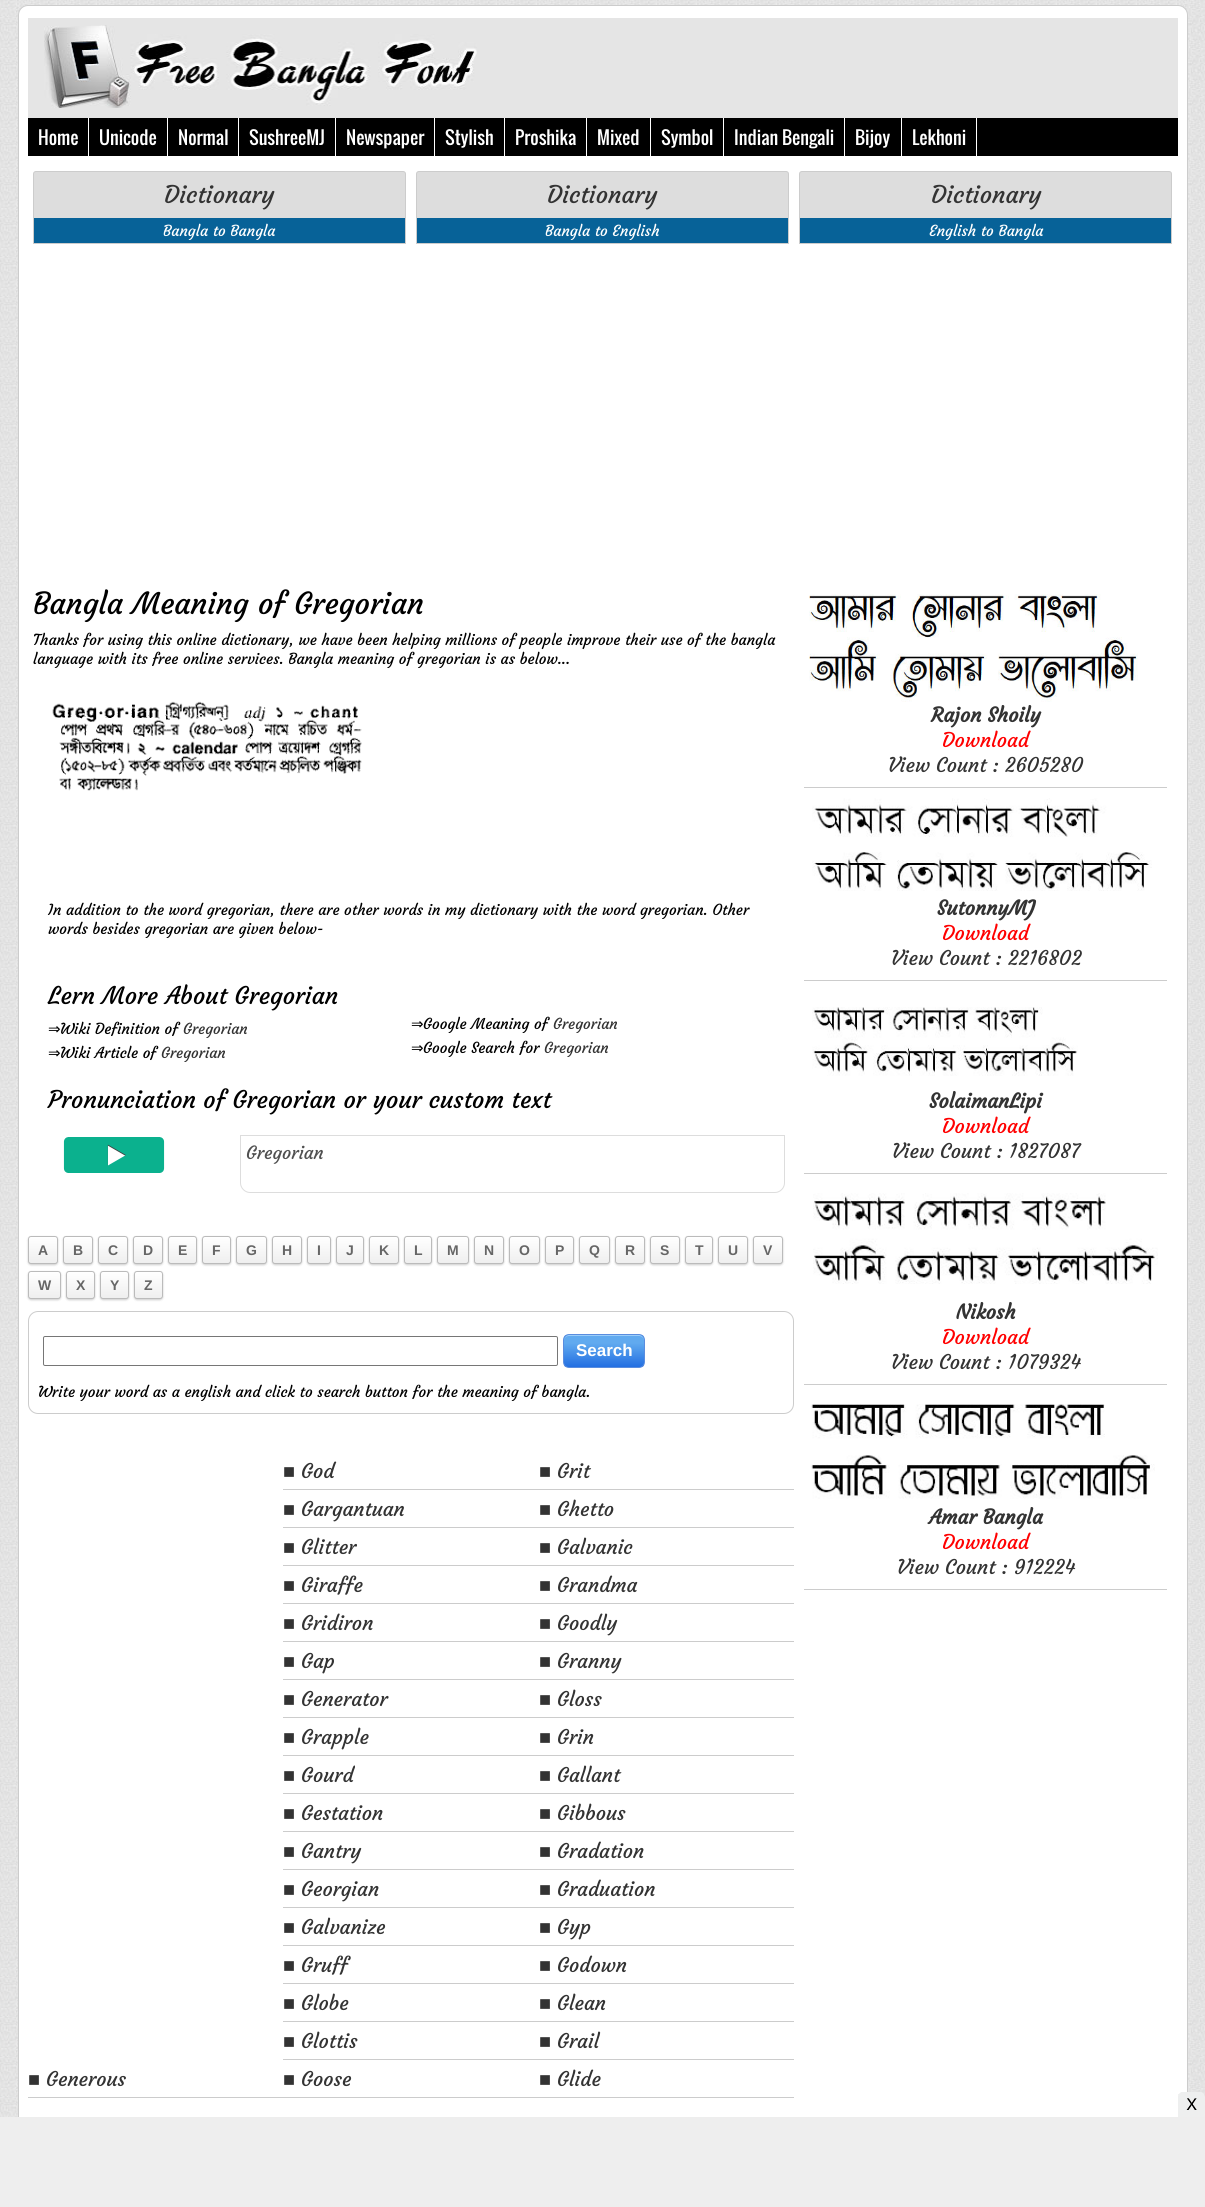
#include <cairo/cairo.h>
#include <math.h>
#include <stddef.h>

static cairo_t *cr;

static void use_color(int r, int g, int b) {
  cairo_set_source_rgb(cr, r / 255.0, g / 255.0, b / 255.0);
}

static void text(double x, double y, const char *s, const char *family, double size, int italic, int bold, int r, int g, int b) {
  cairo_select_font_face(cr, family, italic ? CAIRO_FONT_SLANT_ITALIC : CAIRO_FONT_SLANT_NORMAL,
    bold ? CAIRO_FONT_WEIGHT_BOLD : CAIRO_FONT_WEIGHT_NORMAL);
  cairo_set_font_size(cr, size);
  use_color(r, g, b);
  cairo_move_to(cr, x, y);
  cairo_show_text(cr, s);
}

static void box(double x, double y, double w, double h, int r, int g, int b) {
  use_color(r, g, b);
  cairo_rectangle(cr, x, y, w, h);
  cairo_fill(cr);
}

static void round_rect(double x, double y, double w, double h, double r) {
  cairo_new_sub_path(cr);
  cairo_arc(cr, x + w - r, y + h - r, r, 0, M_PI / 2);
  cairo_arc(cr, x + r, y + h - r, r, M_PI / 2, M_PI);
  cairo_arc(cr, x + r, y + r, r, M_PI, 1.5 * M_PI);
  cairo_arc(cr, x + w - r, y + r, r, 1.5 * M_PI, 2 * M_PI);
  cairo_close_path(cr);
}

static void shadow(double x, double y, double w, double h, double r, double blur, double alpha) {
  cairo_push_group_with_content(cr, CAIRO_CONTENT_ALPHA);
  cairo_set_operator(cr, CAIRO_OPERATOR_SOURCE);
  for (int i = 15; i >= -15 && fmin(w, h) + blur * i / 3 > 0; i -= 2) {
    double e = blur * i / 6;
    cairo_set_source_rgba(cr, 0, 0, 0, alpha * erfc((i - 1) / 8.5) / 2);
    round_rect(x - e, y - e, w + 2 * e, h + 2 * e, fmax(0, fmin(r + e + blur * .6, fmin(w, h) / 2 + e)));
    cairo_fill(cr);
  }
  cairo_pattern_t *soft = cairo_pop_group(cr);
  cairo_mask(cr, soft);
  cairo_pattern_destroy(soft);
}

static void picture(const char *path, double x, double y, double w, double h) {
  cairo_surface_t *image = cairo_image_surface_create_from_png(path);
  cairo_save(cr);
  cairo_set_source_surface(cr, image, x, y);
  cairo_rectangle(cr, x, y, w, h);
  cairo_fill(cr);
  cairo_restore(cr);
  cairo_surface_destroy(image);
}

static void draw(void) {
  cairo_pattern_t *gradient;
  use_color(255, 255, 255);
  cairo_paint(cr);
  picture("img_01.png", 0, 0, 1205, 2117);
  use_color(255, 255, 255);
  round_rect(18.5, 5.5, 1169, 2168, 9.5);
  cairo_fill_preserve(cr);
  use_color(204, 204, 204);
  cairo_set_line_width(cr, 1);
  cairo_stroke(cr);
  box(28, 18, 1150, 100, 229, 229, 229);
  picture("img_02.png", 44, 25, 433, 83);
  box(28, 118, 1150, 38, 0, 0, 0);
  box(88, 118, 1, 38, 255, 255, 255);
  box(167, 118, 1, 38, 255, 255, 255);
  box(238, 118, 1, 38, 255, 255, 255);
  box(335, 118, 1, 38, 255, 255, 255);
  box(434, 118, 1, 38, 255, 255, 255);
  box(504, 118, 1, 38, 255, 255, 255);
  box(586, 118, 1, 38, 255, 255, 255);
  box(650, 118, 1, 38, 255, 255, 255);
  box(723, 118, 1, 38, 255, 255, 255);
  box(844, 118, 1, 38, 255, 255, 255);
  box(901, 118, 1, 38, 255, 255, 255);
  box(976, 118, 1, 38, 255, 255, 255);
  use_color(221, 221, 221);
  cairo_new_path(cr);
  cairo_move_to(cr, 36, 171.5);
  cairo_line_to(cr, 403, 171.5);
  cairo_curve_to(cr, 404.5, 171.5, 405.5, 172.5, 405.5, 174);
  cairo_line_to(cr, 405.5, 243.5);
  cairo_line_to(cr, 33.5, 243.5);
  cairo_line_to(cr, 33.5, 174);
  cairo_curve_to(cr, 33.5, 172.5, 34.5, 171.5, 36, 171.5);
  cairo_close_path(cr);
  cairo_fill_preserve(cr);
  use_color(204, 204, 204);
  cairo_stroke(cr);
  box(34, 218, 371, 25, 7, 98, 152);
  use_color(221, 221, 221);
  cairo_new_path(cr);
  cairo_move_to(cr, 419, 171.5);
  cairo_line_to(cr, 786, 171.5);
  cairo_curve_to(cr, 787.5, 171.5, 788.5, 172.5, 788.5, 174);
  cairo_line_to(cr, 788.5, 243.5);
  cairo_line_to(cr, 416.5, 243.5);
  cairo_line_to(cr, 416.5, 174);
  cairo_curve_to(cr, 416.5, 172.5, 417.5, 171.5, 419, 171.5);
  cairo_close_path(cr);
  cairo_fill_preserve(cr);
  use_color(204, 204, 204);
  cairo_stroke(cr);
  box(417, 218, 371, 25, 7, 98, 152);
  use_color(221, 221, 221);
  cairo_new_path(cr);
  cairo_move_to(cr, 802, 171.5);
  cairo_line_to(cr, 1169, 171.5);
  cairo_curve_to(cr, 1170.5, 171.5, 1171.5, 172.5, 1171.5, 174);
  cairo_line_to(cr, 1171.5, 243.5);
  cairo_line_to(cr, 799.5, 243.5);
  cairo_line_to(cr, 799.5, 174);
  cairo_curve_to(cr, 799.5, 172.5, 800.5, 171.5, 802, 171.5);
  cairo_close_path(cr);
  cairo_fill_preserve(cr);
  use_color(204, 204, 204);
  cairo_stroke(cr);
  box(800, 218, 371, 25, 7, 98, 152);
  picture("img_03.png", 52, 701, 310, 90);
  picture("img_04.png", 63, 1137, 102, 36);
  cairo_new_path(cr);
  cairo_move_to(cr, 240.5, 1135.5);
  cairo_line_to(cr, 784.5, 1135.5);
  cairo_line_to(cr, 784.5, 1183);
  cairo_curve_to(cr, 784.5, 1188, 780, 1192.5, 775, 1192.5);
  cairo_line_to(cr, 250, 1192.5);
  cairo_curve_to(cr, 245, 1192.5, 240.5, 1188, 240.5, 1183);
  cairo_close_path(cr);
  use_color(221, 221, 221);
  cairo_stroke(cr);
  use_color(0, 0, 0);
  shadow(28, 1237, 30, 28, 3, 1, 0.2);
  cairo_save(cr);
  round_rect(28, 1236, 30, 28, 3);
  cairo_clip(cr);
  gradient = cairo_pattern_create_linear(43, 1237, 43, 1263);
  cairo_pattern_add_color_stop_rgba(gradient, 0, 1, 1, 1, 1);
  cairo_pattern_add_color_stop_rgba(gradient, 1, 0.937, 0.937, 0.937, 1);
  cairo_set_source(cr, gradient);
  cairo_pattern_destroy(gradient);
  cairo_rectangle(cr, 28, 1237, 30, 26);
  cairo_fill(cr);
  cairo_restore(cr);
  round_rect(28.5, 1236.5, 29, 27, 2.5);
  use_color(187, 187, 187);
  cairo_stroke(cr);
  use_color(0, 0, 0);
  shadow(63, 1237, 30, 28, 3, 1, 0.2);
  cairo_save(cr);
  round_rect(63, 1236, 30, 28, 3);
  cairo_clip(cr);
  gradient = cairo_pattern_create_linear(78, 1237, 78, 1263);
  cairo_pattern_add_color_stop_rgba(gradient, 0, 1, 1, 1, 1);
  cairo_pattern_add_color_stop_rgba(gradient, 1, 0.937, 0.937, 0.937, 1);
  cairo_set_source(cr, gradient);
  cairo_pattern_destroy(gradient);
  cairo_rectangle(cr, 63, 1237, 30, 26);
  cairo_fill(cr);
  cairo_restore(cr);
  round_rect(63.5, 1236.5, 29, 27, 2.5);
  use_color(187, 187, 187);
  cairo_stroke(cr);
  use_color(0, 0, 0);
  shadow(98, 1237, 30, 28, 3, 1, 0.2);
  cairo_save(cr);
  round_rect(98, 1236, 30, 28, 3);
  cairo_clip(cr);
  gradient = cairo_pattern_create_linear(113, 1237, 113, 1263);
  cairo_pattern_add_color_stop_rgba(gradient, 0, 1, 1, 1, 1);
  cairo_pattern_add_color_stop_rgba(gradient, 1, 0.937, 0.937, 0.937, 1);
  cairo_set_source(cr, gradient);
  cairo_pattern_destroy(gradient);
  cairo_rectangle(cr, 98, 1237, 30, 26);
  cairo_fill(cr);
  cairo_restore(cr);
  round_rect(98.5, 1236.5, 29, 27, 2.5);
  use_color(187, 187, 187);
  cairo_stroke(cr);
  use_color(0, 0, 0);
  shadow(133, 1237, 30, 28, 3, 1, 0.2);
  cairo_save(cr);
  round_rect(133, 1236, 30, 28, 3);
  cairo_clip(cr);
  gradient = cairo_pattern_create_linear(148, 1237, 148, 1263);
  cairo_pattern_add_color_stop_rgba(gradient, 0, 1, 1, 1, 1);
  cairo_pattern_add_color_stop_rgba(gradient, 1, 0.937, 0.937, 0.937, 1);
  cairo_set_source(cr, gradient);
  cairo_pattern_destroy(gradient);
  cairo_rectangle(cr, 133, 1237, 30, 26);
  cairo_fill(cr);
  cairo_restore(cr);
  round_rect(133.5, 1236.5, 29, 27, 2.5);
  use_color(187, 187, 187);
  cairo_stroke(cr);
  use_color(0, 0, 0);
  shadow(168, 1237, 29, 28, 3, 1, 0.2);
  cairo_save(cr);
  round_rect(168, 1236, 29, 28, 3);
  cairo_clip(cr);
  gradient = cairo_pattern_create_linear(183, 1237, 183, 1263);
  cairo_pattern_add_color_stop_rgba(gradient, 0, 1, 1, 1, 1);
  cairo_pattern_add_color_stop_rgba(gradient, 1, 0.937, 0.937, 0.937, 1);
  cairo_set_source(cr, gradient);
  cairo_pattern_destroy(gradient);
  cairo_rectangle(cr, 168, 1237, 29, 26);
  cairo_fill(cr);
  cairo_restore(cr);
  round_rect(168.5, 1236.5, 28, 27, 2.5);
  use_color(187, 187, 187);
  cairo_stroke(cr);
  use_color(0, 0, 0);
  shadow(202, 1237, 29, 28, 3, 1, 0.2);
  cairo_save(cr);
  round_rect(202, 1236, 29, 28, 3);
  cairo_clip(cr);
  gradient = cairo_pattern_create_linear(217, 1237, 217, 1263);
  cairo_pattern_add_color_stop_rgba(gradient, 0, 1, 1, 1, 1);
  cairo_pattern_add_color_stop_rgba(gradient, 1, 0.937, 0.937, 0.937, 1);
  cairo_set_source(cr, gradient);
  cairo_pattern_destroy(gradient);
  cairo_rectangle(cr, 202, 1237, 29, 26);
  cairo_fill(cr);
  cairo_restore(cr);
  round_rect(202.5, 1236.5, 28, 27, 2.5);
  use_color(187, 187, 187);
  cairo_stroke(cr);
  use_color(0, 0, 0);
  shadow(236, 1237, 31, 28, 3, 1, 0.2);
  cairo_save(cr);
  round_rect(236, 1236, 31, 28, 3);
  cairo_clip(cr);
  gradient = cairo_pattern_create_linear(252, 1237, 252, 1263);
  cairo_pattern_add_color_stop_rgba(gradient, 0, 1, 1, 1, 1);
  cairo_pattern_add_color_stop_rgba(gradient, 1, 0.937, 0.937, 0.937, 1);
  cairo_set_source(cr, gradient);
  cairo_pattern_destroy(gradient);
  cairo_rectangle(cr, 236, 1237, 31, 26);
  cairo_fill(cr);
  cairo_restore(cr);
  round_rect(236.5, 1236.5, 30, 27, 2.5);
  use_color(187, 187, 187);
  cairo_stroke(cr);
  use_color(0, 0, 0);
  shadow(272, 1237, 30, 28, 3, 1, 0.2);
  cairo_save(cr);
  round_rect(272, 1236, 30, 28, 3);
  cairo_clip(cr);
  gradient = cairo_pattern_create_linear(287, 1237, 287, 1263);
  cairo_pattern_add_color_stop_rgba(gradient, 0, 1, 1, 1, 1);
  cairo_pattern_add_color_stop_rgba(gradient, 1, 0.937, 0.937, 0.937, 1);
  cairo_set_source(cr, gradient);
  cairo_pattern_destroy(gradient);
  cairo_rectangle(cr, 272, 1237, 30, 26);
  cairo_fill(cr);
  cairo_restore(cr);
  round_rect(272.5, 1236.5, 29, 27, 2.5);
  use_color(187, 187, 187);
  cairo_stroke(cr);
  use_color(0, 0, 0);
  shadow(307, 1237, 24, 28, 3, 1, 0.2);
  cairo_save(cr);
  round_rect(307, 1236, 24, 28, 3);
  cairo_clip(cr);
  gradient = cairo_pattern_create_linear(319, 1237, 319, 1263);
  cairo_pattern_add_color_stop_rgba(gradient, 0, 1, 1, 1, 1);
  cairo_pattern_add_color_stop_rgba(gradient, 1, 0.937, 0.937, 0.937, 1);
  cairo_set_source(cr, gradient);
  cairo_pattern_destroy(gradient);
  cairo_rectangle(cr, 307, 1237, 24, 26);
  cairo_fill(cr);
  cairo_restore(cr);
  round_rect(307.5, 1236.5, 23, 27, 2.5);
  use_color(187, 187, 187);
  cairo_stroke(cr);
  use_color(0, 0, 0);
  shadow(336, 1237, 28, 28, 3, 1, 0.2);
  cairo_save(cr);
  round_rect(336, 1236, 28, 28, 3);
  cairo_clip(cr);
  gradient = cairo_pattern_create_linear(350, 1237, 350, 1263);
  cairo_pattern_add_color_stop_rgba(gradient, 0, 1, 1, 1, 1);
  cairo_pattern_add_color_stop_rgba(gradient, 1, 0.937, 0.937, 0.937, 1);
  cairo_set_source(cr, gradient);
  cairo_pattern_destroy(gradient);
  cairo_rectangle(cr, 336, 1237, 28, 26);
  cairo_fill(cr);
  cairo_restore(cr);
  round_rect(336.5, 1236.5, 27, 27, 2.5);
  use_color(187, 187, 187);
  cairo_stroke(cr);
  use_color(0, 0, 0);
  shadow(369, 1237, 30, 28, 3, 1, 0.2);
  cairo_save(cr);
  round_rect(369, 1236, 30, 28, 3);
  cairo_clip(cr);
  gradient = cairo_pattern_create_linear(384, 1237, 384, 1263);
  cairo_pattern_add_color_stop_rgba(gradient, 0, 1, 1, 1, 1);
  cairo_pattern_add_color_stop_rgba(gradient, 1, 0.937, 0.937, 0.937, 1);
  cairo_set_source(cr, gradient);
  cairo_pattern_destroy(gradient);
  cairo_rectangle(cr, 369, 1237, 30, 26);
  cairo_fill(cr);
  cairo_restore(cr);
  round_rect(369.5, 1236.5, 29, 27, 2.5);
  use_color(187, 187, 187);
  cairo_stroke(cr);
  use_color(0, 0, 0);
  shadow(404, 1237, 28, 28, 3, 1, 0.2);
  cairo_save(cr);
  round_rect(404, 1236, 28, 28, 3);
  cairo_clip(cr);
  gradient = cairo_pattern_create_linear(418, 1237, 418, 1263);
  cairo_pattern_add_color_stop_rgba(gradient, 0, 1, 1, 1, 1);
  cairo_pattern_add_color_stop_rgba(gradient, 1, 0.937, 0.937, 0.937, 1);
  cairo_set_source(cr, gradient);
  cairo_pattern_destroy(gradient);
  cairo_rectangle(cr, 404, 1237, 28, 26);
  cairo_fill(cr);
  cairo_restore(cr);
  round_rect(404.5, 1236.5, 27, 27, 2.5);
  use_color(187, 187, 187);
  cairo_stroke(cr);
  use_color(0, 0, 0);
  shadow(437, 1237, 32, 28, 3, 1, 0.2);
  cairo_save(cr);
  round_rect(437, 1236, 32, 28, 3);
  cairo_clip(cr);
  gradient = cairo_pattern_create_linear(453, 1237, 453, 1263);
  cairo_pattern_add_color_stop_rgba(gradient, 0, 1, 1, 1, 1);
  cairo_pattern_add_color_stop_rgba(gradient, 1, 0.937, 0.937, 0.937, 1);
  cairo_set_source(cr, gradient);
  cairo_pattern_destroy(gradient);
  cairo_rectangle(cr, 437, 1237, 32, 26);
  cairo_fill(cr);
  cairo_restore(cr);
  round_rect(437.5, 1236.5, 31, 27, 2.5);
  use_color(187, 187, 187);
  cairo_stroke(cr);
  use_color(0, 0, 0);
  shadow(474, 1237, 30, 28, 3, 1, 0.2);
  cairo_save(cr);
  round_rect(474, 1236, 30, 28, 3);
  cairo_clip(cr);
  gradient = cairo_pattern_create_linear(489, 1237, 489, 1263);
  cairo_pattern_add_color_stop_rgba(gradient, 0, 1, 1, 1, 1);
  cairo_pattern_add_color_stop_rgba(gradient, 1, 0.937, 0.937, 0.937, 1);
  cairo_set_source(cr, gradient);
  cairo_pattern_destroy(gradient);
  cairo_rectangle(cr, 474, 1237, 30, 26);
  cairo_fill(cr);
  cairo_restore(cr);
  round_rect(474.5, 1236.5, 29, 27, 2.5);
  use_color(187, 187, 187);
  cairo_stroke(cr);
  use_color(0, 0, 0);
  shadow(509, 1237, 31, 28, 3, 1, 0.2);
  cairo_save(cr);
  round_rect(509, 1236, 31, 28, 3);
  cairo_clip(cr);
  gradient = cairo_pattern_create_linear(525, 1237, 525, 1263);
  cairo_pattern_add_color_stop_rgba(gradient, 0, 1, 1, 1, 1);
  cairo_pattern_add_color_stop_rgba(gradient, 1, 0.937, 0.937, 0.937, 1);
  cairo_set_source(cr, gradient);
  cairo_pattern_destroy(gradient);
  cairo_rectangle(cr, 509, 1237, 31, 26);
  cairo_fill(cr);
  cairo_restore(cr);
  round_rect(509.5, 1236.5, 30, 27, 2.5);
  use_color(187, 187, 187);
  cairo_stroke(cr);
  use_color(0, 0, 0);
  shadow(545, 1237, 29, 28, 3, 1, 0.2);
  cairo_save(cr);
  round_rect(545, 1236, 29, 28, 3);
  cairo_clip(cr);
  gradient = cairo_pattern_create_linear(560, 1237, 560, 1263);
  cairo_pattern_add_color_stop_rgba(gradient, 0, 1, 1, 1, 1);
  cairo_pattern_add_color_stop_rgba(gradient, 1, 0.937, 0.937, 0.937, 1);
  cairo_set_source(cr, gradient);
  cairo_pattern_destroy(gradient);
  cairo_rectangle(cr, 545, 1237, 29, 26);
  cairo_fill(cr);
  cairo_restore(cr);
  round_rect(545.5, 1236.5, 28, 27, 2.5);
  use_color(187, 187, 187);
  cairo_stroke(cr);
  use_color(0, 0, 0);
  shadow(579, 1237, 31, 28, 3, 1, 0.2);
  cairo_save(cr);
  round_rect(579, 1236, 31, 28, 3);
  cairo_clip(cr);
  gradient = cairo_pattern_create_linear(595, 1237, 595, 1263);
  cairo_pattern_add_color_stop_rgba(gradient, 0, 1, 1, 1, 1);
  cairo_pattern_add_color_stop_rgba(gradient, 1, 0.937, 0.937, 0.937, 1);
  cairo_set_source(cr, gradient);
  cairo_pattern_destroy(gradient);
  cairo_rectangle(cr, 579, 1237, 31, 26);
  cairo_fill(cr);
  cairo_restore(cr);
  round_rect(579.5, 1236.5, 30, 27, 2.5);
  use_color(187, 187, 187);
  cairo_stroke(cr);
  use_color(0, 0, 0);
  shadow(615, 1237, 30, 28, 3, 1, 0.2);
  cairo_save(cr);
  round_rect(615, 1236, 30, 28, 3);
  cairo_clip(cr);
  gradient = cairo_pattern_create_linear(630, 1237, 630, 1263);
  cairo_pattern_add_color_stop_rgba(gradient, 0, 1, 1, 1, 1);
  cairo_pattern_add_color_stop_rgba(gradient, 1, 0.937, 0.937, 0.937, 1);
  cairo_set_source(cr, gradient);
  cairo_pattern_destroy(gradient);
  cairo_rectangle(cr, 615, 1237, 30, 26);
  cairo_fill(cr);
  cairo_restore(cr);
  round_rect(615.5, 1236.5, 29, 27, 2.5);
  use_color(187, 187, 187);
  cairo_stroke(cr);
  use_color(0, 0, 0);
  shadow(650, 1237, 30, 28, 3, 1, 0.2);
  cairo_save(cr);
  round_rect(650, 1236, 30, 28, 3);
  cairo_clip(cr);
  gradient = cairo_pattern_create_linear(665, 1237, 665, 1263);
  cairo_pattern_add_color_stop_rgba(gradient, 0, 1, 1, 1, 1);
  cairo_pattern_add_color_stop_rgba(gradient, 1, 0.937, 0.937, 0.937, 1);
  cairo_set_source(cr, gradient);
  cairo_pattern_destroy(gradient);
  cairo_rectangle(cr, 650, 1237, 30, 26);
  cairo_fill(cr);
  cairo_restore(cr);
  round_rect(650.5, 1236.5, 29, 27, 2.5);
  use_color(187, 187, 187);
  cairo_stroke(cr);
  use_color(0, 0, 0);
  shadow(685, 1237, 28, 28, 3, 1, 0.2);
  cairo_save(cr);
  round_rect(685, 1236, 28, 28, 3);
  cairo_clip(cr);
  gradient = cairo_pattern_create_linear(699, 1237, 699, 1263);
  cairo_pattern_add_color_stop_rgba(gradient, 0, 1, 1, 1, 1);
  cairo_pattern_add_color_stop_rgba(gradient, 1, 0.937, 0.937, 0.937, 1);
  cairo_set_source(cr, gradient);
  cairo_pattern_destroy(gradient);
  cairo_rectangle(cr, 685, 1237, 28, 26);
  cairo_fill(cr);
  cairo_restore(cr);
  round_rect(685.5, 1236.5, 27, 27, 2.5);
  use_color(187, 187, 187);
  cairo_stroke(cr);
  use_color(0, 0, 0);
  shadow(718, 1237, 30, 28, 3, 1, 0.2);
  cairo_save(cr);
  round_rect(718, 1236, 30, 28, 3);
  cairo_clip(cr);
  gradient = cairo_pattern_create_linear(733, 1237, 733, 1263);
  cairo_pattern_add_color_stop_rgba(gradient, 0, 1, 1, 1, 1);
  cairo_pattern_add_color_stop_rgba(gradient, 1, 0.937, 0.937, 0.937, 1);
  cairo_set_source(cr, gradient);
  cairo_pattern_destroy(gradient);
  cairo_rectangle(cr, 718, 1237, 30, 26);
  cairo_fill(cr);
  cairo_restore(cr);
  round_rect(718.5, 1236.5, 29, 27, 2.5);
  use_color(187, 187, 187);
  cairo_stroke(cr);
  use_color(0, 0, 0);
  shadow(753, 1237, 30, 28, 3, 1, 0.2);
  cairo_save(cr);
  round_rect(753, 1236, 30, 28, 3);
  cairo_clip(cr);
  gradient = cairo_pattern_create_linear(768, 1237, 768, 1263);
  cairo_pattern_add_color_stop_rgba(gradient, 0, 1, 1, 1, 1);
  cairo_pattern_add_color_stop_rgba(gradient, 1, 0.937, 0.937, 0.937, 1);
  cairo_set_source(cr, gradient);
  cairo_pattern_destroy(gradient);
  cairo_rectangle(cr, 753, 1237, 30, 26);
  cairo_fill(cr);
  cairo_restore(cr);
  round_rect(753.5, 1236.5, 29, 27, 2.5);
  use_color(187, 187, 187);
  cairo_stroke(cr);
  use_color(0, 0, 0);
  shadow(28, 1272, 33, 28, 3, 1, 0.2);
  cairo_save(cr);
  round_rect(28, 1271, 33, 28, 3);
  cairo_clip(cr);
  gradient = cairo_pattern_create_linear(45, 1272, 45, 1298);
  cairo_pattern_add_color_stop_rgba(gradient, 0, 1, 1, 1, 1);
  cairo_pattern_add_color_stop_rgba(gradient, 1, 0.937, 0.937, 0.937, 1);
  cairo_set_source(cr, gradient);
  cairo_pattern_destroy(gradient);
  cairo_rectangle(cr, 28, 1272, 33, 26);
  cairo_fill(cr);
  cairo_restore(cr);
  round_rect(28.5, 1271.5, 32, 27, 2.5);
  use_color(187, 187, 187);
  cairo_stroke(cr);
  use_color(0, 0, 0);
  shadow(66, 1272, 29, 28, 3, 1, 0.2);
  cairo_save(cr);
  round_rect(66, 1271, 29, 28, 3);
  cairo_clip(cr);
  gradient = cairo_pattern_create_linear(81, 1272, 81, 1298);
  cairo_pattern_add_color_stop_rgba(gradient, 0, 1, 1, 1, 1);
  cairo_pattern_add_color_stop_rgba(gradient, 1, 0.937, 0.937, 0.937, 1);
  cairo_set_source(cr, gradient);
  cairo_pattern_destroy(gradient);
  cairo_rectangle(cr, 66, 1272, 29, 26);
  cairo_fill(cr);
  cairo_restore(cr);
  round_rect(66.5, 1271.5, 28, 27, 2.5);
  use_color(187, 187, 187);
  cairo_stroke(cr);
  use_color(0, 0, 0);
  shadow(100, 1272, 29, 28, 3, 1, 0.2);
  cairo_save(cr);
  round_rect(100, 1271, 29, 28, 3);
  cairo_clip(cr);
  gradient = cairo_pattern_create_linear(115, 1272, 115, 1298);
  cairo_pattern_add_color_stop_rgba(gradient, 0, 1, 1, 1, 1);
  cairo_pattern_add_color_stop_rgba(gradient, 1, 0.937, 0.937, 0.937, 1);
  cairo_set_source(cr, gradient);
  cairo_pattern_destroy(gradient);
  cairo_rectangle(cr, 100, 1272, 29, 26);
  cairo_fill(cr);
  cairo_restore(cr);
  round_rect(100.5, 1271.5, 28, 27, 2.5);
  use_color(187, 187, 187);
  cairo_stroke(cr);
  use_color(0, 0, 0);
  shadow(134, 1272, 29, 28, 3, 1, 0.2);
  cairo_save(cr);
  round_rect(134, 1271, 29, 28, 3);
  cairo_clip(cr);
  gradient = cairo_pattern_create_linear(149, 1272, 149, 1298);
  cairo_pattern_add_color_stop_rgba(gradient, 0, 1, 1, 1, 1);
  cairo_pattern_add_color_stop_rgba(gradient, 1, 0.937, 0.937, 0.937, 1);
  cairo_set_source(cr, gradient);
  cairo_pattern_destroy(gradient);
  cairo_rectangle(cr, 134, 1272, 29, 26);
  cairo_fill(cr);
  cairo_restore(cr);
  round_rect(134.5, 1271.5, 28, 27, 2.5);
  use_color(187, 187, 187);
  cairo_stroke(cr);
  round_rect(28.5, 1311.5, 765, 102, 9.5);
  use_color(204, 204, 204);
  cairo_stroke(cr);
  round_rect(43.5, 1336.5, 514, 29, 1.5);
  use_color(118, 118, 118);
  cairo_stroke(cr);
  cairo_save(cr);
  round_rect(563, 1334, 82, 34, 6);
  cairo_clip(cr);
  gradient = cairo_pattern_create_linear(604, 1335, 604, 1367);
  cairo_pattern_add_color_stop_rgba(gradient, 0, 0.38, 0.667, 0.937, 1);
  cairo_pattern_add_color_stop_rgba(gradient, 0.25, 0.38, 0.667, 0.937, 1);
  cairo_pattern_add_color_stop_rgba(gradient, 1, 0.137, 0.435, 0.886, 1);
  cairo_set_source(cr, gradient);
  cairo_pattern_destroy(gradient);
  cairo_rectangle(cr, 564, 1335, 80, 32);
  cairo_fill(cr);
  cairo_restore(cr);
  use_color(154, 205, 249);
  cairo_new_path(cr);
  cairo_move_to(cr, 569, 1336);
  cairo_line_to(cr, 639, 1336);
  cairo_curve_to(cr, 642, 1336, 644, 1338, 644, 1341);
  cairo_curve_to(cr, 644, 1332, 633, 1335, 627, 1335);
  cairo_line_to(cr, 581, 1335);
  cairo_curve_to(cr, 575, 1335, 564, 1332, 564, 1341);
  cairo_curve_to(cr, 564, 1338, 566, 1336, 569, 1336);
  cairo_close_path(cr);
  cairo_fill(cr);
  round_rect(563.5, 1334.5, 81, 33, 5.5);
  use_color(90, 141, 223);
  cairo_stroke(cr);
  box(283, 1489, 511, 1, 204, 204, 204);
  box(283, 1527, 511, 1, 204, 204, 204);
  box(283, 1565, 511, 1, 204, 204, 204);
  box(283, 1603, 511, 1, 204, 204, 204);
  box(283, 1641, 511, 1, 204, 204, 204);
  box(283, 1679, 511, 1, 204, 204, 204);
  box(283, 1717, 511, 1, 204, 204, 204);
  box(283, 1755, 511, 1, 204, 204, 204);
  box(283, 1793, 511, 1, 204, 204, 204);
  box(283, 1831, 511, 1, 204, 204, 204);
  box(283, 1869, 511, 1, 204, 204, 204);
  box(283, 1907, 511, 1, 204, 204, 204);
  box(283, 1945, 511, 1, 204, 204, 204);
  box(283, 1983, 511, 1, 204, 204, 204);
  box(283, 2021, 511, 1, 204, 204, 204);
  box(283, 2059, 511, 1, 204, 204, 204);
  box(28, 2097, 766, 1, 204, 204, 204);
  box(804, 787, 363, 1, 204, 204, 204);
  picture("img_05.png", 809, 594, 329, 108);
  box(804, 980, 363, 1, 204, 204, 204);
  picture("img_06.png", 812, 798, 340, 93);
  box(804, 1173, 363, 1, 204, 204, 204);
  picture("img_07.png", 812, 1007, 266, 69);
  box(804, 1384, 363, 1, 204, 204, 204);
  picture("img_08.png", 813, 1193, 345, 91);
  box(804, 1589, 363, 1, 204, 204, 204);
  picture("img_09.png", 811, 1404, 344, 95);
  picture("img_10.png", 1178, 2092, 27, 25);
  box(0, 2117, 1205, 90, 238, 238, 238);
  text(38, 145, "Home", "Oswald", 18, 0, 0, 255, 255, 255);
  text(99, 145, "Unicode", "Oswald", 18, 0, 0, 255, 255, 255);
  text(178, 145, "Normal", "Oswald", 18, 0, 0, 255, 255, 255);
  text(249, 145, "SushreeMJ", "Oswald", 18, 0, 0, 255, 255, 255);
  text(346, 145, "Newspaper", "Oswald", 18, 0, 0, 255, 255, 255);
  text(445, 145, "Stylish", "Oswald", 18, 0, 0, 255, 255, 255);
  text(515, 145, "Proshika", "Oswald", 18, 0, 0, 255, 255, 255);
  text(597, 145, "Mixed", "Oswald", 18, 0, 0, 255, 255, 255);
  text(661, 145, "Symbol", "Oswald", 18, 0, 0, 255, 255, 255);
  text(734, 145, "Indian Bengali", "Oswald", 18, 0, 0, 255, 255, 255);
  text(855, 145, "Bijoy", "Oswald", 18, 0, 0, 255, 255, 255);
  text(912, 145, "Lekhoni", "Oswald", 18, 0, 0, 255, 255, 255);
  text(164, 203, "Dictionary", "Courgette", 24, 0, 0, 51, 51, 51);
  text(163, 236, "Bangla to Bangla", "Courgette", 15, 0, 0, 255, 255, 255);
  text(547, 203, "Dictionary", "Courgette", 24, 0, 0, 51, 51, 51);
  text(545, 236, "Bangla to English", "Courgette", 15, 0, 0, 255, 255, 255);
  text(931, 203, "Dictionary", "Courgette", 24, 0, 0, 51, 51, 51);
  text(929, 236, "English to Bangla", "Courgette", 15, 0, 0, 255, 255, 255);
  text(33, 614, "Bangla Meaning of Gregorian", "Courgette", 30, 0, 0, 0, 0, 0);
  text(33, 645, "Thanks for using this online dictionary, we have been helping millions of people improve their use of the bangla", "Courgette", 15, 0, 0, 0, 0, 0);
  text(33, 664, "language with its free online services. Bangla meaning of gregorian is as below...", "Courgette", 15, 0, 0, 0, 0, 0);
  text(48, 915, "In addition to the word gregorian, there are other words in my dictionary with the word gregorian. Other", "Courgette", 15, 0, 0, 0, 0, 0);
  text(48, 934, "words besides gregorian are given below-", "Courgette", 15, 0, 0, 0, 0, 0);
  text(48, 1004, "Lern More About Gregorian", "Courgette", 24, 0, 0, 0, 0, 0);
  text(48, 1034, "⇒", "DejaVu Sans", 15, 0, 0, 0, 0, 0);
  text(60, 1034, "Wiki Definition of", "Courgette", 15, 0, 0, 0, 0, 0);
  text(183, 1034, "Gregorian", "Courgette", 15, 0, 0, 51, 51, 51);
  text(48, 1058, "⇒", "DejaVu Sans", 15, 0, 0, 0, 0, 0);
  text(60, 1058, "Wiki Article of", "Courgette", 15, 0, 0, 0, 0, 0);
  text(161, 1058, "Gregorian", "Courgette", 15, 0, 0, 51, 51, 51);
  text(411, 1029, "⇒", "DejaVu Sans", 15, 0, 0, 0, 0, 0);
  text(423, 1029, "Google Meaning of", "Courgette", 15, 0, 0, 0, 0, 0);
  text(553, 1029, "Gregorian", "Courgette", 15, 0, 0, 51, 51, 51);
  text(411, 1053, "⇒", "DejaVu Sans", 15, 0, 0, 0, 0, 0);
  text(423, 1053, "Google Search for", "Courgette", 15, 0, 0, 0, 0, 0);
  text(544, 1053, "Gregorian", "Courgette", 15, 0, 0, 51, 51, 51);
  text(48, 1108, "Pronunciation of Gregorian or your custom text", "Courgette", 24, 0, 0, 0, 0, 0);
  text(246, 1159, "Gregorian", "Courgette", 18, 0, 0, 80, 80, 80);
  text(38, 1255, "A", "Liberation Sans", 14, 0, 1, 102, 102, 102);
  text(73, 1255, "B", "Liberation Sans", 14, 0, 1, 102, 102, 102);
  text(108, 1255, "C", "Liberation Sans", 14, 0, 1, 102, 102, 102);
  text(143, 1255, "D", "Liberation Sans", 14, 0, 1, 102, 102, 102);
  text(178, 1255, "E", "Liberation Sans", 14, 0, 1, 102, 102, 102);
  text(212, 1255, "F", "Liberation Sans", 14, 0, 1, 102, 102, 102);
  text(246, 1255, "G", "Liberation Sans", 14, 0, 1, 102, 102, 102);
  text(282, 1255, "H", "Liberation Sans", 14, 0, 1, 102, 102, 102);
  text(317, 1255, "I", "Liberation Sans", 14, 0, 1, 102, 102, 102);
  text(346, 1255, "J", "Liberation Sans", 14, 0, 1, 102, 102, 102);
  text(379, 1255, "K", "Liberation Sans", 14, 0, 1, 102, 102, 102);
  text(414, 1255, "L", "Liberation Sans", 14, 0, 1, 102, 102, 102);
  text(447, 1255, "M", "Liberation Sans", 14, 0, 1, 102, 102, 102);
  text(484, 1255, "N", "Liberation Sans", 14, 0, 1, 102, 102, 102);
  text(519, 1255, "O", "Liberation Sans", 14, 0, 1, 102, 102, 102);
  text(555, 1255, "P", "Liberation Sans", 14, 0, 1, 102, 102, 102);
  text(589, 1255, "Q", "Liberation Sans", 14, 0, 1, 102, 102, 102);
  text(625, 1255, "R", "Liberation Sans", 14, 0, 1, 102, 102, 102);
  text(660, 1255, "S", "Liberation Sans", 14, 0, 1, 102, 102, 102);
  text(695, 1255, "T", "Liberation Sans", 14, 0, 1, 102, 102, 102);
  text(728, 1255, "U", "Liberation Sans", 14, 0, 1, 102, 102, 102);
  text(763, 1255, "V", "Liberation Sans", 14, 0, 1, 102, 102, 102);
  text(38, 1290, "W", "Liberation Sans", 14, 0, 1, 102, 102, 102);
  text(76, 1290, "X", "Liberation Sans", 14, 0, 1, 102, 102, 102);
  text(110, 1290, "Y", "Liberation Sans", 14, 0, 1, 102, 102, 102);
  text(144, 1290, "Z", "Liberation Sans", 14, 0, 1, 102, 102, 102);
  text(576, 1356, "Search", "Liberation Sans", 17, 0, 1, 255, 255, 255);
  text(38, 1397, "Write your word as a english and click to search button for the meaning of bangla.", "Courgette", 15, 0, 0, 0, 0, 0);
  text(283, 1478, "■", "Liberation Serif", 20, 0, 0, 51, 51, 51);
  text(301, 1478, "God", "Courgette", 20, 0, 0, 51, 51, 51);
  text(539, 1478, "■", "Liberation Serif", 20, 0, 0, 51, 51, 51);
  text(557, 1478, "Grit", "Courgette", 20, 0, 0, 51, 51, 51);
  text(283, 1516, "■", "Liberation Serif", 20, 0, 0, 51, 51, 51);
  text(301, 1516, "Gargantuan", "Courgette", 20, 0, 0, 51, 51, 51);
  text(539, 1516, "■", "Liberation Serif", 20, 0, 0, 51, 51, 51);
  text(557, 1516, "Ghetto", "Courgette", 20, 0, 0, 51, 51, 51);
  text(283, 1554, "■", "Liberation Serif", 20, 0, 0, 51, 51, 51);
  text(301, 1554, "Glitter", "Courgette", 20, 0, 0, 51, 51, 51);
  text(539, 1554, "■", "Liberation Serif", 20, 0, 0, 51, 51, 51);
  text(557, 1554, "Galvanic", "Courgette", 20, 0, 0, 51, 51, 51);
  text(283, 1592, "■", "Liberation Serif", 20, 0, 0, 51, 51, 51);
  text(301, 1592, "Giraffe", "Courgette", 20, 0, 0, 51, 51, 51);
  text(539, 1592, "■", "Liberation Serif", 20, 0, 0, 51, 51, 51);
  text(557, 1592, "Grandma", "Courgette", 20, 0, 0, 51, 51, 51);
  text(283, 1630, "■", "Liberation Serif", 20, 0, 0, 51, 51, 51);
  text(301, 1630, "Gridiron", "Courgette", 20, 0, 0, 51, 51, 51);
  text(539, 1630, "■", "Liberation Serif", 20, 0, 0, 51, 51, 51);
  text(557, 1630, "Goodly", "Courgette", 20, 0, 0, 51, 51, 51);
  text(283, 1668, "■", "Liberation Serif", 20, 0, 0, 51, 51, 51);
  text(301, 1668, "Gap", "Courgette", 20, 0, 0, 51, 51, 51);
  text(539, 1668, "■", "Liberation Serif", 20, 0, 0, 51, 51, 51);
  text(557, 1668, "Granny", "Courgette", 20, 0, 0, 51, 51, 51);
  text(283, 1706, "■", "Liberation Serif", 20, 0, 0, 51, 51, 51);
  text(301, 1706, "Generator", "Courgette", 20, 0, 0, 51, 51, 51);
  text(539, 1706, "■", "Liberation Serif", 20, 0, 0, 51, 51, 51);
  text(557, 1706, "Gloss", "Courgette", 20, 0, 0, 51, 51, 51);
  text(283, 1744, "■", "Liberation Serif", 20, 0, 0, 51, 51, 51);
  text(301, 1744, "Grapple", "Courgette", 20, 0, 0, 51, 51, 51);
  text(539, 1744, "■", "Liberation Serif", 20, 0, 0, 51, 51, 51);
  text(557, 1744, "Grin", "Courgette", 20, 0, 0, 51, 51, 51);
  text(283, 1782, "■", "Liberation Serif", 20, 0, 0, 51, 51, 51);
  text(301, 1782, "Gourd", "Courgette", 20, 0, 0, 51, 51, 51);
  text(539, 1782, "■", "Liberation Serif", 20, 0, 0, 51, 51, 51);
  text(557, 1782, "Gallant", "Courgette", 20, 0, 0, 51, 51, 51);
  text(283, 1820, "■", "Liberation Serif", 20, 0, 0, 51, 51, 51);
  text(301, 1820, "Gestation", "Courgette", 20, 0, 0, 51, 51, 51);
  text(539, 1820, "■", "Liberation Serif", 20, 0, 0, 51, 51, 51);
  text(557, 1820, "Gibbous", "Courgette", 20, 0, 0, 51, 51, 51);
  text(283, 1858, "■", "Liberation Serif", 20, 0, 0, 51, 51, 51);
  text(301, 1858, "Gantry", "Courgette", 20, 0, 0, 51, 51, 51);
  text(539, 1858, "■", "Liberation Serif", 20, 0, 0, 51, 51, 51);
  text(557, 1858, "Gradation", "Courgette", 20, 0, 0, 51, 51, 51);
  text(283, 1896, "■", "Liberation Serif", 20, 0, 0, 51, 51, 51);
  text(301, 1896, "Georgian", "Courgette", 20, 0, 0, 51, 51, 51);
  text(539, 1896, "■", "Liberation Serif", 20, 0, 0, 51, 51, 51);
  text(557, 1896, "Graduation", "Courgette", 20, 0, 0, 51, 51, 51);
  text(283, 1934, "■", "Liberation Serif", 20, 0, 0, 51, 51, 51);
  text(301, 1934, "Galvanize", "Courgette", 20, 0, 0, 51, 51, 51);
  text(539, 1934, "■", "Liberation Serif", 20, 0, 0, 51, 51, 51);
  text(557, 1934, "Gyp", "Courgette", 20, 0, 0, 51, 51, 51);
  text(283, 1972, "■", "Liberation Serif", 20, 0, 0, 51, 51, 51);
  text(301, 1972, "Gruff", "Courgette", 20, 0, 0, 51, 51, 51);
  text(539, 1972, "■", "Liberation Serif", 20, 0, 0, 51, 51, 51);
  text(557, 1972, "Godown", "Courgette", 20, 0, 0, 51, 51, 51);
  text(283, 2010, "■", "Liberation Serif", 20, 0, 0, 51, 51, 51);
  text(301, 2010, "Globe", "Courgette", 20, 0, 0, 51, 51, 51);
  text(539, 2010, "■", "Liberation Serif", 20, 0, 0, 51, 51, 51);
  text(557, 2010, "Glean", "Courgette", 20, 0, 0, 51, 51, 51);
  text(283, 2048, "■", "Liberation Serif", 20, 0, 0, 51, 51, 51);
  text(301, 2048, "Glottis", "Courgette", 20, 0, 0, 51, 51, 51);
  text(539, 2048, "■", "Liberation Serif", 20, 0, 0, 51, 51, 51);
  text(557, 2048, "Grail", "Courgette", 20, 0, 0, 51, 51, 51);
  text(28, 2086, "■", "Liberation Serif", 20, 0, 0, 51, 51, 51);
  text(46, 2086, "Generous", "Courgette", 20, 0, 0, 51, 51, 51);
  text(283, 2086, "■", "Liberation Serif", 20, 0, 0, 51, 51, 51);
  text(301, 2086, "Goose", "Courgette", 20, 0, 0, 51, 51, 51);
  text(539, 2086, "■", "Liberation Serif", 20, 0, 0, 51, 51, 51);
  text(557, 2086, "Glide", "Courgette", 20, 0, 0, 51, 51, 51);
  text(931, 722, "Rajon Shoily", "Courgette", 20, 0, 1, 51, 51, 51);
  text(942, 747, "Download", "Courgette", 20, 0, 0, 255, 0, 0);
  text(888, 772, "View Count : 2605280", "Courgette", 20, 0, 0, 51, 51, 51);
  text(937, 915, "SutonnyMJ", "Courgette", 20, 0, 1, 51, 51, 51);
  text(942, 940, "Download", "Courgette", 20, 0, 0, 255, 0, 0);
  text(891, 965, "View Count : 2216802", "Courgette", 20, 0, 0, 51, 51, 51);
  text(929, 1108, "SolaimanLipi", "Courgette", 20, 0, 1, 51, 51, 51);
  text(942, 1133, "Download", "Courgette", 20, 0, 0, 255, 0, 0);
  text(892, 1158, "View Count : 1827087", "Courgette", 20, 0, 0, 51, 51, 51);
  text(956, 1319, "Nikosh", "Courgette", 20, 0, 1, 51, 51, 51);
  text(942, 1344, "Download", "Courgette", 20, 0, 0, 255, 0, 0);
  text(891, 1369, "View Count : 1079324", "Courgette", 20, 0, 0, 51, 51, 51);
  text(929, 1524, "Amar Bangla", "Courgette", 20, 0, 1, 51, 51, 51);
  text(942, 1549, "Download", "Courgette", 20, 0, 0, 255, 0, 0);
  text(897, 1574, "View Count : 912224", "Courgette", 20, 0, 0, 51, 51, 51);
}

int main(void) {
  cairo_surface_t *surface = cairo_image_surface_create(CAIRO_FORMAT_RGB24, 1205, 2207);
  cr = cairo_create(surface);
  cairo_font_options_t *options = cairo_font_options_create();
  cairo_font_options_set_hint_metrics(options, CAIRO_HINT_METRICS_OFF);
  cairo_font_options_set_hint_style(options, CAIRO_HINT_STYLE_NONE);
  cairo_set_font_options(cr, options);
  cairo_set_miter_limit(cr, 4);
  draw();
  cairo_surface_write_to_png(surface, "out.png");
  cairo_font_options_destroy(options);
  cairo_destroy(cr);
  cairo_surface_destroy(surface);
  return 0;
}
